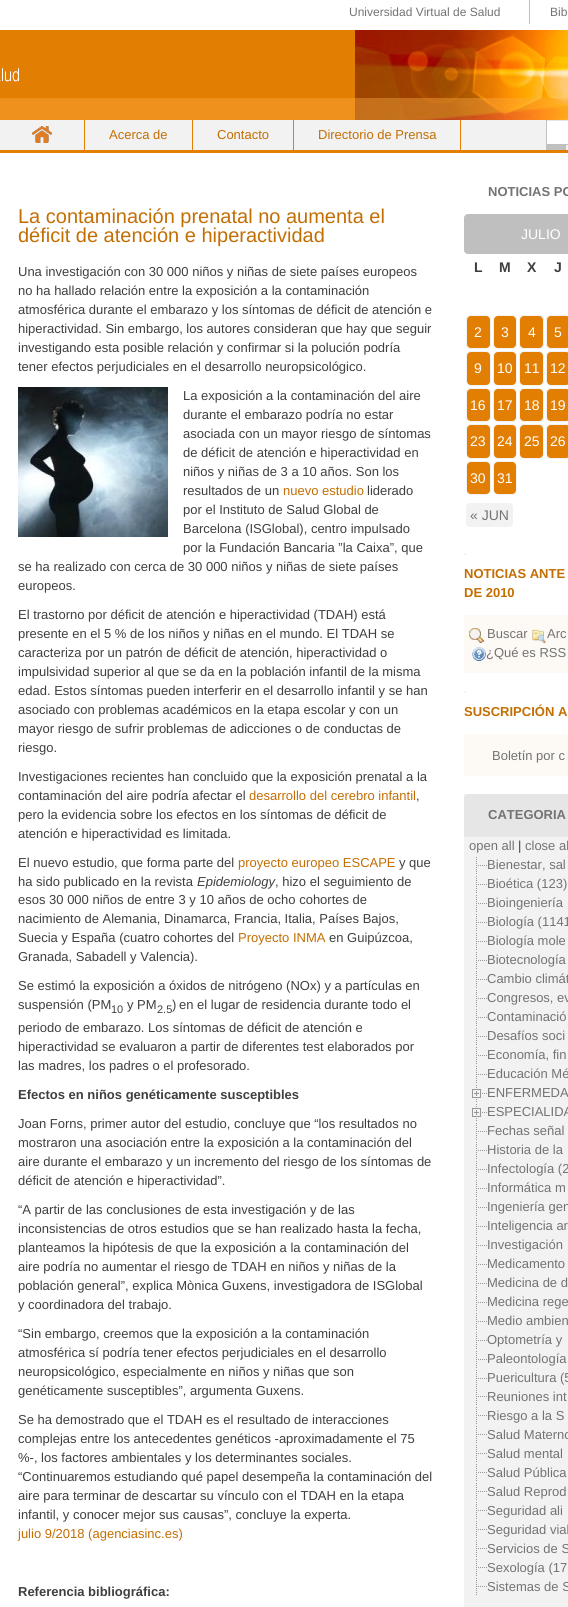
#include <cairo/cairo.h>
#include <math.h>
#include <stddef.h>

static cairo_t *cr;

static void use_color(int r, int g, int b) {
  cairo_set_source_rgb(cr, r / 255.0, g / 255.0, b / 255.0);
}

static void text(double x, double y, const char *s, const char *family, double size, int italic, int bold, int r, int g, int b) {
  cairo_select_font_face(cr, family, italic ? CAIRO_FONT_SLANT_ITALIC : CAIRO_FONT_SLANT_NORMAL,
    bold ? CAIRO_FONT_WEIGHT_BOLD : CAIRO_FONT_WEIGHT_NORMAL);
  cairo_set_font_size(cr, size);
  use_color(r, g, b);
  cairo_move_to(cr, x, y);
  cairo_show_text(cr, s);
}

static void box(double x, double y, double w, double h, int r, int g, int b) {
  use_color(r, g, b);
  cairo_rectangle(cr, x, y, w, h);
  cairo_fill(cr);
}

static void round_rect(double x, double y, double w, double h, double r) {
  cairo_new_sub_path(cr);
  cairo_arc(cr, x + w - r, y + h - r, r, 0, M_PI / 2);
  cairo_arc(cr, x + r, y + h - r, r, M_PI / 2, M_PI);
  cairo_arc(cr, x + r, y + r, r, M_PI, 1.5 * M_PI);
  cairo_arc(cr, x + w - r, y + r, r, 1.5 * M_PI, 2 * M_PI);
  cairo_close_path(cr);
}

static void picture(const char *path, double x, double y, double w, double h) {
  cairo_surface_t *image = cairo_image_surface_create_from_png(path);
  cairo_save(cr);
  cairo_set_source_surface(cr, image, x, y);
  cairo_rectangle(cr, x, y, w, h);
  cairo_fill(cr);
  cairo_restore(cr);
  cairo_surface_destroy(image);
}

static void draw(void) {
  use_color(255, 255, 255);
  cairo_paint(cr);
  box(529, 0, 1, 24, 191, 191, 191);
  picture("img_01.png", 0, 30, 568, 90);
  box(0, 120, 568, 30, 242, 242, 242);
  box(0, 150, 568, 3, 226, 126, 2);
  picture("img_02.png", 32, 126, 20, 17);
  box(84, 120, 1, 30, 226, 126, 2);
  box(192, 120, 1, 30, 226, 126, 2);
  box(293, 120, 1, 30, 226, 126, 2);
  box(460, 120, 1, 30, 226, 126, 2);
  box(547, 121, 21, 23, 255, 255, 255);
  use_color(230, 230, 230);
  cairo_new_path(cr);
  cairo_move_to(cr, 546, 120);
  cairo_line_to(cr, 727, 120);
  cairo_line_to(cr, 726, 121);
  cairo_line_to(cr, 547, 121);
  cairo_close_path(cr);
  cairo_fill(cr);
  use_color(192, 192, 192);
  cairo_new_path(cr);
  cairo_move_to(cr, 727, 145);
  cairo_line_to(cr, 546, 145);
  cairo_line_to(cr, 547, 144);
  cairo_line_to(cr, 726, 144);
  cairo_close_path(cr);
  cairo_fill(cr);
  box(546, 120, 1, 25, 192, 192, 192);
  box(546, 145, 20, 5, 192, 192, 192);
  picture("img_03.png", 18, 387, 150, 150);
  use_color(191, 191, 191);
  round_rect(464, 214, 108, 40, 4);
  cairo_fill(cr);
  use_color(242, 242, 242);
  round_rect(466, 315, 25, 34, 4);
  cairo_fill(cr);
  use_color(226, 126, 2);
  round_rect(467, 316, 23, 32, 4);
  cairo_fill(cr);
  use_color(242, 242, 242);
  round_rect(493, 315, 24, 34, 4);
  cairo_fill(cr);
  use_color(226, 126, 2);
  round_rect(494, 316, 22, 32, 4);
  cairo_fill(cr);
  use_color(242, 242, 242);
  round_rect(519, 315, 25, 34, 4);
  cairo_fill(cr);
  use_color(226, 126, 2);
  round_rect(520, 316, 23, 32, 4);
  cairo_fill(cr);
  use_color(242, 242, 242);
  round_rect(546, 315, 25, 34, 4);
  cairo_fill(cr);
  use_color(226, 126, 2);
  round_rect(547, 316, 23, 32, 4);
  cairo_fill(cr);
  use_color(242, 242, 242);
  round_rect(466, 351, 25, 35, 4);
  cairo_fill(cr);
  use_color(226, 126, 2);
  round_rect(467, 352, 23, 33, 4);
  cairo_fill(cr);
  use_color(242, 242, 242);
  round_rect(493, 351, 24, 35, 4);
  cairo_fill(cr);
  use_color(226, 126, 2);
  round_rect(494, 352, 22, 33, 4);
  cairo_fill(cr);
  use_color(242, 242, 242);
  round_rect(519, 351, 25, 35, 4);
  cairo_fill(cr);
  use_color(226, 126, 2);
  round_rect(520, 352, 23, 33, 4);
  cairo_fill(cr);
  use_color(242, 242, 242);
  round_rect(546, 351, 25, 35, 4);
  cairo_fill(cr);
  use_color(226, 126, 2);
  round_rect(547, 352, 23, 33, 4);
  cairo_fill(cr);
  use_color(242, 242, 242);
  round_rect(466, 388, 25, 34, 4);
  cairo_fill(cr);
  use_color(226, 126, 2);
  round_rect(467, 389, 23, 32, 4);
  cairo_fill(cr);
  use_color(242, 242, 242);
  round_rect(493, 388, 24, 34, 4);
  cairo_fill(cr);
  use_color(226, 126, 2);
  round_rect(494, 389, 22, 32, 4);
  cairo_fill(cr);
  use_color(242, 242, 242);
  round_rect(519, 388, 25, 34, 4);
  cairo_fill(cr);
  use_color(226, 126, 2);
  round_rect(520, 389, 23, 32, 4);
  cairo_fill(cr);
  use_color(242, 242, 242);
  round_rect(546, 388, 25, 34, 4);
  cairo_fill(cr);
  use_color(226, 126, 2);
  round_rect(547, 389, 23, 32, 4);
  cairo_fill(cr);
  use_color(242, 242, 242);
  round_rect(466, 424, 25, 35, 4);
  cairo_fill(cr);
  use_color(226, 126, 2);
  round_rect(467, 425, 23, 33, 4);
  cairo_fill(cr);
  use_color(242, 242, 242);
  round_rect(493, 424, 24, 35, 4);
  cairo_fill(cr);
  use_color(226, 126, 2);
  round_rect(494, 425, 22, 33, 4);
  cairo_fill(cr);
  use_color(242, 242, 242);
  round_rect(519, 424, 25, 35, 4);
  cairo_fill(cr);
  use_color(226, 126, 2);
  round_rect(520, 425, 23, 33, 4);
  cairo_fill(cr);
  use_color(242, 242, 242);
  round_rect(546, 424, 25, 35, 4);
  cairo_fill(cr);
  use_color(226, 126, 2);
  round_rect(547, 425, 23, 33, 4);
  cairo_fill(cr);
  use_color(242, 242, 242);
  round_rect(466, 461, 25, 34, 4);
  cairo_fill(cr);
  use_color(226, 126, 2);
  round_rect(467, 462, 23, 32, 4);
  cairo_fill(cr);
  use_color(242, 242, 242);
  round_rect(493, 461, 24, 34, 4);
  cairo_fill(cr);
  use_color(226, 126, 2);
  round_rect(494, 462, 22, 32, 4);
  cairo_fill(cr);
  use_color(242, 242, 242);
  round_rect(466, 503, 47, 24, 4);
  cairo_fill(cr);
  box(464, 553, 4, 4, 242, 242, 242);
  use_color(255, 255, 255);
  cairo_new_path(cr);
  cairo_move_to(cr, 468, 553);
  cairo_line_to(cr, 568, 553);
  cairo_curve_to(cr, 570, 553, 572, 555, 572, 557);
  cairo_line_to(cr, 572, 615);
  cairo_line_to(cr, 464, 615);
  cairo_line_to(cr, 464, 557);
  cairo_curve_to(cr, 464, 555, 466, 553, 468, 553);
  cairo_close_path(cr);
  cairo_fill(cr);
  box(464, 615, 104, 58, 253, 249, 244);
  picture("img_04.png", 469, 628, 15, 15);
  picture("img_05.png", 532, 629, 14, 15);
  picture("img_06.png", 472, 647, 14, 15);
  box(464, 691, 4, 4, 242, 242, 242);
  use_color(255, 255, 255);
  cairo_new_path(cr);
  cairo_move_to(cr, 468, 691);
  cairo_line_to(cr, 568, 691);
  cairo_curve_to(cr, 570, 691, 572, 693, 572, 695);
  cairo_line_to(cr, 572, 734);
  cairo_line_to(cr, 464, 734);
  cairo_line_to(cr, 464, 695);
  cairo_curve_to(cr, 464, 693, 466, 691, 468, 691);
  cairo_close_path(cr);
  cairo_fill(cr);
  box(464, 734, 104, 42, 253, 249, 244);
  box(464, 794, 104, 813, 242, 242, 242);
  use_color(230, 230, 230);
  cairo_new_path(cr);
  cairo_move_to(cr, 468, 794);
  cairo_line_to(cr, 568, 794);
  cairo_curve_to(cr, 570, 794, 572, 796, 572, 798);
  cairo_line_to(cr, 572, 837);
  cairo_line_to(cr, 464, 837);
  cairo_line_to(cr, 464, 798);
  cairo_curve_to(cr, 464, 796, 466, 794, 468, 794);
  cairo_close_path(cr);
  cairo_fill(cr);
  picture("img_07.png", 476, 857, 11, 17);
  picture("img_07.png", 476, 876, 11, 17);
  picture("img_07.png", 476, 895, 11, 17);
  picture("img_07.png", 476, 914, 11, 17);
  picture("img_07.png", 476, 933, 11, 17);
  picture("img_07.png", 476, 952, 11, 17);
  picture("img_07.png", 476, 971, 11, 17);
  picture("img_07.png", 476, 990, 11, 17);
  picture("img_07.png", 476, 1009, 11, 17);
  picture("img_07.png", 476, 1028, 11, 17);
  picture("img_07.png", 476, 1047, 11, 17);
  picture("img_07.png", 476, 1066, 11, 17);
  picture("img_08.png", 472, 1085, 15, 17);
  picture("img_08.png", 472, 1104, 15, 17);
  picture("img_07.png", 476, 1123, 11, 17);
  picture("img_07.png", 476, 1142, 11, 17);
  picture("img_07.png", 476, 1161, 11, 17);
  picture("img_07.png", 476, 1180, 11, 17);
  picture("img_07.png", 476, 1199, 11, 17);
  picture("img_07.png", 476, 1218, 11, 17);
  picture("img_07.png", 476, 1237, 11, 17);
  picture("img_07.png", 476, 1256, 11, 17);
  picture("img_07.png", 476, 1275, 11, 17);
  picture("img_07.png", 476, 1294, 11, 17);
  picture("img_07.png", 476, 1313, 11, 17);
  picture("img_07.png", 476, 1332, 11, 17);
  picture("img_07.png", 476, 1351, 11, 17);
  picture("img_07.png", 476, 1370, 11, 17);
  picture("img_07.png", 476, 1388, 11, 17);
  picture("img_07.png", 476, 1407, 11, 17);
  picture("img_07.png", 476, 1426, 11, 17);
  picture("img_07.png", 476, 1445, 11, 17);
  picture("img_07.png", 476, 1464, 11, 17);
  picture("img_07.png", 476, 1483, 11, 17);
  picture("img_07.png", 476, 1502, 11, 17);
  picture("img_07.png", 476, 1521, 11, 17);
  picture("img_07.png", 476, 1540, 11, 17);
  picture("img_07.png", 476, 1559, 11, 17);
  picture("img_07.png", 476, 1578, 11, 17);
  text(349, 16, "Universidad Virtual de Salud", "Liberation Sans", 12, 0, 0, 115, 115, 115);
  text(550, 16, "Bib", "Liberation Sans", 12, 0, 0, 115, 115, 115);
  text(109, 139, "Acerca de", "Liberation Sans", 13, 0, 0, 195, 110, 3);
  text(217, 139, "Contacto", "Liberation Sans", 13, 0, 0, 195, 110, 3);
  text(318, 139, "Directorio de Prensa", "Liberation Sans", 13, 0, 0, 195, 110, 3);
  text(18, 223, "La contaminación prenatal no aumenta el", "Liberation Sans", 20, 0, 0, 195, 110, 3);
  text(18, 242, "déficit de atención e hiperactividad", "Liberation Sans", 20, 0, 0, 195, 110, 3);
  text(18, 276, "Una investigación con 30 000 niños y niñas de siete países europeos", "Liberation Sans", 13, 0, 0, 63, 63, 63);
  text(18, 295, "no ha hallado relación entre la exposición a la contaminación", "Liberation Sans", 13, 0, 0, 63, 63, 63);
  text(18, 314, "atmosférica durante el embarazo y los síntomas de déficit de atención e", "Liberation Sans", 13, 0, 0, 63, 63, 63);
  text(18, 333, "hiperactividad. Sin embargo, los autores consideran que hay que seguir", "Liberation Sans", 13, 0, 0, 63, 63, 63);
  text(18, 352, "investigando esta posible relación y confirmar si la polución podría", "Liberation Sans", 13, 0, 0, 63, 63, 63);
  text(18, 371, "tener efectos perjudiciales en el desarrollo neuropsicológico.", "Liberation Sans", 13, 0, 0, 63, 63, 63);
  text(183, 400, "La exposición a la contaminación del aire", "Liberation Sans", 13, 0, 0, 63, 63, 63);
  text(183, 419, "durante el embarazo podría no estar", "Liberation Sans", 13, 0, 0, 63, 63, 63);
  text(183, 438, "asociada con un mayor riesgo de síntomas", "Liberation Sans", 13, 0, 0, 63, 63, 63);
  text(183, 457, "de déficit de atención e hiperactividad en", "Liberation Sans", 13, 0, 0, 63, 63, 63);
  text(183, 476, "niños y niñas de 3 a 10 años. Son los", "Liberation Sans", 13, 0, 0, 63, 63, 63);
  text(183, 495, "resultados de un", "Liberation Sans", 13, 0, 0, 63, 63, 63);
  text(283, 495, "nuevo estudio", "Liberation Sans", 13, 0, 0, 195, 110, 3);
  text(367, 495, "liderado", "Liberation Sans", 13, 0, 0, 63, 63, 63);
  text(183, 514, "por el Instituto de Salud Global de", "Liberation Sans", 13, 0, 0, 63, 63, 63);
  text(183, 533, "Barcelona (ISGlobal), centro impulsado", "Liberation Sans", 13, 0, 0, 63, 63, 63);
  text(183, 552, "por la Fundación Bancaria ”la Caixa”, que", "Liberation Sans", 13, 0, 0, 63, 63, 63);
  text(18, 571, "se ha realizado con cerca de 30 000 niños y niñas de siete países", "Liberation Sans", 13, 0, 0, 63, 63, 63);
  text(18, 590, "europeos.", "Liberation Sans", 13, 0, 0, 63, 63, 63);
  text(18, 619, "El trastorno por déficit de atención e hiperactividad (TDAH) está", "Liberation Sans", 13, 0, 0, 63, 63, 63);
  text(18, 638, "presente en el 5 % de los niños y niñas en el mundo. El TDAH se", "Liberation Sans", 13, 0, 0, 63, 63, 63);
  text(18, 657, "caracteriza por un patrón de déficit de atención, hiperactividad o", "Liberation Sans", 13, 0, 0, 63, 63, 63);
  text(18, 676, "impulsividad superior al que se da en la población infantil de la misma", "Liberation Sans", 13, 0, 0, 63, 63, 63);
  text(18, 695, "edad. Estos síntomas pueden interferir en el desarrollo infantil y se han", "Liberation Sans", 13, 0, 0, 63, 63, 63);
  text(18, 714, "asociado con problemas académicos en la etapa escolar y con un", "Liberation Sans", 13, 0, 0, 63, 63, 63);
  text(18, 733, "mayor riesgo de sufrir problemas de adicciones o de conductas de", "Liberation Sans", 13, 0, 0, 63, 63, 63);
  text(18, 752, "riesgo.", "Liberation Sans", 13, 0, 0, 63, 63, 63);
  text(18, 781, "Investigaciones recientes han concluido que la exposición prenatal a la", "Liberation Sans", 13, 0, 0, 63, 63, 63);
  text(18, 800, "contaminación del aire podría afectar el", "Liberation Sans", 13, 0, 0, 63, 63, 63);
  text(249, 800, "desarrollo del cerebro infantil", "Liberation Sans", 13, 0, 0, 195, 110, 3);
  text(416, 800, ",", "Liberation Sans", 13, 0, 0, 63, 63, 63);
  text(18, 819, "pero la evidencia sobre los efectos en los síntomas de déficit de", "Liberation Sans", 13, 0, 0, 63, 63, 63);
  text(18, 838, "atención e hiperactividad es limitada.", "Liberation Sans", 13, 0, 0, 63, 63, 63);
  text(18, 867, "El nuevo estudio, que forma parte del", "Liberation Sans", 13, 0, 0, 63, 63, 63);
  text(238, 867, "proyecto europeo ESCAPE", "Liberation Sans", 13, 0, 0, 195, 110, 3);
  text(399, 867, "y que", "Liberation Sans", 13, 0, 0, 63, 63, 63);
  text(18, 886, "ha sido publicado en la revista", "Liberation Sans", 13, 0, 0, 63, 63, 63);
  text(197, 886, "Epidemiology", "Liberation Sans", 13, 1, 0, 63, 63, 63);
  text(275, 886, ", hizo el seguimiento de", "Liberation Sans", 13, 0, 0, 63, 63, 63);
  text(18, 904, "esos 30 000 niños de entre 3 y 10 años de ocho cohortes de", "Liberation Sans", 13, 0, 0, 63, 63, 63);
  text(18, 923, "nacimiento de Alemania, Dinamarca, Francia, Italia, Países Bajos,", "Liberation Sans", 13, 0, 0, 63, 63, 63);
  text(18, 942, "Suecia y España (cuatro cohortes del", "Liberation Sans", 13, 0, 0, 63, 63, 63);
  text(238, 942, "Proyecto INMA", "Liberation Sans", 13, 0, 0, 195, 110, 3);
  text(329, 942, "en Guipúzcoa,", "Liberation Sans", 13, 0, 0, 63, 63, 63);
  text(18, 961, "Granada, Sabadell y Valencia).", "Liberation Sans", 13, 0, 0, 63, 63, 63);
  text(18, 990, "Se estimó la exposición a óxidos de nitrógeno (NOx) y a partículas en", "Liberation Sans", 13, 0, 0, 63, 63, 63);
  text(18, 1009, "suspensión (PM", "Liberation Sans", 13, 0, 0, 63, 63, 63);
  text(111, 1013, "10", "Liberation Sans", 11, 0, 0, 63, 63, 63);
  text(127, 1009, "y PM", "Liberation Sans", 13, 0, 0, 63, 63, 63);
  text(157, 1013, "2.5", "Liberation Sans", 11, 0, 0, 63, 63, 63);
  text(172, 1009, ")", "Liberation Sans", 13, 0, 0, 63, 63, 63);
  text(179, 1009, "en el lugar de residencia durante todo el", "Liberation Sans", 13, 0, 0, 63, 63, 63);
  text(18, 1032, "periodo de embarazo. Los síntomas de déficit de atención e", "Liberation Sans", 13, 0, 0, 63, 63, 63);
  text(18, 1051, "hiperactividad se evaluaron a partir de diferentes test elaborados por", "Liberation Sans", 13, 0, 0, 63, 63, 63);
  text(18, 1070, "las madres, los padres o el profesorado.", "Liberation Sans", 13, 0, 0, 63, 63, 63);
  text(18, 1099, "Efectos en niños genéticamente susceptibles", "Liberation Sans", 13, 0, 1, 63, 63, 63);
  text(18, 1128, "Joan Forns, primer autor del estudio, concluye que “los resultados no", "Liberation Sans", 13, 0, 0, 63, 63, 63);
  text(18, 1147, "mostraron una asociación entre la exposición a la contaminación del", "Liberation Sans", 13, 0, 0, 63, 63, 63);
  text(18, 1166, "aire durante el embarazo y un incremento del riesgo de los síntomas de", "Liberation Sans", 13, 0, 0, 63, 63, 63);
  text(18, 1185, "déficit de atención e hiperactividad”.", "Liberation Sans", 13, 0, 0, 63, 63, 63);
  text(18, 1214, "“A partir de las conclusiones de esta investigación y de las", "Liberation Sans", 13, 0, 0, 63, 63, 63);
  text(18, 1233, "inconsistencias de otros estudios que se han realizado hasta la fecha,", "Liberation Sans", 13, 0, 0, 63, 63, 63);
  text(18, 1252, "planteamos la hipótesis de que la exposición a la contaminación del", "Liberation Sans", 13, 0, 0, 63, 63, 63);
  text(18, 1271, "aire podría no aumentar el riesgo de TDAH en niños y niñas de la", "Liberation Sans", 13, 0, 0, 63, 63, 63);
  text(18, 1290, "población general”, explica Mònica Guxens, investigadora de ISGlobal", "Liberation Sans", 13, 0, 0, 63, 63, 63);
  text(18, 1309, "y coordinadora del trabajo.", "Liberation Sans", 13, 0, 0, 63, 63, 63);
  text(18, 1338, "“Sin embargo, creemos que la exposición a la contaminación", "Liberation Sans", 13, 0, 0, 63, 63, 63);
  text(18, 1357, "atmosférica sí podría tener efectos perjudiciales en el desarrollo", "Liberation Sans", 13, 0, 0, 63, 63, 63);
  text(18, 1376, "neuropsicológico, especialmente en niños y niñas que son", "Liberation Sans", 13, 0, 0, 63, 63, 63);
  text(18, 1395, "genéticamente susceptibles”, argumenta Guxens.", "Liberation Sans", 13, 0, 0, 63, 63, 63);
  text(18, 1424, "Se ha demostrado que el TDAH es el resultado de interacciones", "Liberation Sans", 13, 0, 0, 63, 63, 63);
  text(18, 1443, "complejas entre los antecedentes genéticos -aproximadamente el 75", "Liberation Sans", 13, 0, 0, 63, 63, 63);
  text(18, 1462, "%-, los factores ambientales y los determinantes sociales.", "Liberation Sans", 13, 0, 0, 63, 63, 63);
  text(18, 1481, "“Continuaremos estudiando qué papel desempeña la contaminación del", "Liberation Sans", 13, 0, 0, 63, 63, 63);
  text(18, 1500, "aire para terminar de descartar su vínculo con el TDAH en la etapa", "Liberation Sans", 13, 0, 0, 63, 63, 63);
  text(18, 1519, "infantil, y conocer mejor sus causas”, concluye la experta.", "Liberation Sans", 13, 0, 0, 63, 63, 63);
  text(18, 1538, "julio 9/2018 (agenciasinc.es)", "Liberation Sans", 13, 0, 0, 195, 110, 3);
  text(18, 1596, "Referencia bibliográfica:", "Liberation Sans", 13, 0, 1, 63, 63, 63);
  text(488, 196, "NOTICIAS PO", "Liberation Sans", 13, 0, 1, 115, 115, 115);
  text(521, 239, "JULIO", "Liberation Sans", 14, 0, 0, 255, 255, 255);
  text(474, 272, "L", "Liberation Sans", 14, 0, 1, 63, 63, 63);
  text(499, 272, "M", "Liberation Sans", 14, 0, 1, 63, 63, 63);
  text(527, 272, "X", "Liberation Sans", 14, 0, 1, 63, 63, 63);
  text(554, 272, "J", "Liberation Sans", 14, 0, 1, 63, 63, 63);
  text(474, 337, "2", "Liberation Sans", 14, 0, 0, 255, 255, 255);
  text(501, 337, "3", "Liberation Sans", 14, 0, 0, 255, 255, 255);
  text(528, 337, "4", "Liberation Sans", 14, 0, 0, 255, 255, 255);
  text(554, 337, "5", "Liberation Sans", 14, 0, 0, 255, 255, 255);
  text(474, 373, "9", "Liberation Sans", 14, 0, 0, 255, 255, 255);
  text(497, 373, "10", "Liberation Sans", 14, 0, 0, 255, 255, 255);
  text(524, 373, "11", "Liberation Sans", 14, 0, 0, 255, 255, 255);
  text(550, 373, "12", "Liberation Sans", 14, 0, 0, 255, 255, 255);
  text(470, 410, "16", "Liberation Sans", 14, 0, 0, 255, 255, 255);
  text(497, 410, "17", "Liberation Sans", 14, 0, 0, 255, 255, 255);
  text(524, 410, "18", "Liberation Sans", 14, 0, 0, 255, 255, 255);
  text(550, 410, "19", "Liberation Sans", 14, 0, 0, 255, 255, 255);
  text(470, 446, "23", "Liberation Sans", 14, 0, 0, 255, 255, 255);
  text(497, 446, "24", "Liberation Sans", 14, 0, 0, 255, 255, 255);
  text(524, 446, "25", "Liberation Sans", 14, 0, 0, 255, 255, 255);
  text(550, 446, "26", "Liberation Sans", 14, 0, 0, 255, 255, 255);
  text(470, 483, "30", "Liberation Sans", 14, 0, 0, 255, 255, 255);
  text(497, 483, "31", "Liberation Sans", 14, 0, 0, 255, 255, 255);
  text(470, 520, "« JUN", "Liberation Sans", 14, 0, 0, 115, 115, 115);
  text(464, 578, "NOTICIAS ANTE", "Liberation Sans", 13, 0, 1, 195, 110, 3);
  text(464, 597, "DE 2010", "Liberation Sans", 13, 0, 1, 195, 110, 3);
  text(487, 638, "Buscar", "Liberation Sans", 13, 0, 0, 115, 115, 115);
  text(547, 638, "Arc", "Liberation Sans", 13, 0, 0, 115, 115, 115);
  text(486, 657, "¿Qué es RSS", "Liberation Sans", 13, 0, 0, 115, 115, 115);
  text(464, 716, "SUSCRIPCIÓN A", "Liberation Sans", 13, 0, 1, 195, 110, 3);
  text(492, 760, "Boletín por c", "Liberation Sans", 13, 0, 0, 115, 115, 115);
  text(488, 819, "CATEGORIA", "Liberation Sans", 13, 0, 1, 115, 115, 115);
  text(469, 850, "open all", "Liberation Sans", 13, 0, 0, 115, 115, 115);
  text(518, 850, "|", "Liberation Sans", 13, 0, 0, 63, 63, 63);
  text(525, 850, "close al", "Liberation Sans", 13, 0, 0, 115, 115, 115);
  text(487, 869, "Bienestar, sal", "Liberation Sans", 13, 0, 0, 115, 115, 115);
  text(487, 888, "Bioética (123)", "Liberation Sans", 13, 0, 0, 115, 115, 115);
  text(487, 907, "Bioingeniería", "Liberation Sans", 13, 0, 0, 115, 115, 115);
  text(487, 926, "Biología (1141", "Liberation Sans", 13, 0, 0, 115, 115, 115);
  text(487, 945, "Biología mole", "Liberation Sans", 13, 0, 0, 115, 115, 115);
  text(487, 964, "Biotecnología", "Liberation Sans", 13, 0, 0, 115, 115, 115);
  text(487, 983, "Cambio climát", "Liberation Sans", 13, 0, 0, 115, 115, 115);
  text(487, 1002, "Congresos, ev", "Liberation Sans", 13, 0, 0, 115, 115, 115);
  text(487, 1021, "Contaminació", "Liberation Sans", 13, 0, 0, 115, 115, 115);
  text(487, 1040, "Desafíos soci", "Liberation Sans", 13, 0, 0, 115, 115, 115);
  text(487, 1059, "Economía, fin", "Liberation Sans", 13, 0, 0, 115, 115, 115);
  text(487, 1078, "Educación Mé", "Liberation Sans", 13, 0, 0, 115, 115, 115);
  text(487, 1097, "ENFERMEDA", "Liberation Sans", 13, 0, 0, 115, 115, 115);
  text(487, 1116, "ESPECIALIDA", "Liberation Sans", 13, 0, 0, 115, 115, 115);
  text(487, 1135, "Fechas señal", "Liberation Sans", 13, 0, 0, 115, 115, 115);
  text(487, 1154, "Historia de la", "Liberation Sans", 13, 0, 0, 115, 115, 115);
  text(487, 1173, "Infectología (2", "Liberation Sans", 13, 0, 0, 115, 115, 115);
  text(487, 1192, "Informática m", "Liberation Sans", 13, 0, 0, 115, 115, 115);
  text(487, 1211, "Ingeniería gen", "Liberation Sans", 13, 0, 0, 115, 115, 115);
  text(487, 1230, "Inteligencia ar", "Liberation Sans", 13, 0, 0, 115, 115, 115);
  text(487, 1249, "Investigación", "Liberation Sans", 13, 0, 0, 115, 115, 115);
  text(487, 1268, "Medicamento", "Liberation Sans", 13, 0, 0, 115, 115, 115);
  text(487, 1287, "Medicina de d", "Liberation Sans", 13, 0, 0, 115, 115, 115);
  text(487, 1306, "Medicina rege", "Liberation Sans", 13, 0, 0, 115, 115, 115);
  text(487, 1325, "Medio ambien", "Liberation Sans", 13, 0, 0, 115, 115, 115);
  text(487, 1344, "Optometría y", "Liberation Sans", 13, 0, 0, 115, 115, 115);
  text(487, 1363, "Paleontología", "Liberation Sans", 13, 0, 0, 115, 115, 115);
  text(487, 1382, "Puericultura (5", "Liberation Sans", 13, 0, 0, 115, 115, 115);
  text(487, 1401, "Reuniones int", "Liberation Sans", 13, 0, 0, 115, 115, 115);
  text(487, 1420, "Riesgo a la S", "Liberation Sans", 13, 0, 0, 115, 115, 115);
  text(487, 1439, "Salud Materno", "Liberation Sans", 13, 0, 0, 115, 115, 115);
  text(487, 1458, "Salud mental", "Liberation Sans", 13, 0, 0, 115, 115, 115);
  text(487, 1477, "Salud Pública", "Liberation Sans", 13, 0, 0, 115, 115, 115);
  text(487, 1496, "Salud Reprod", "Liberation Sans", 13, 0, 0, 115, 115, 115);
  text(487, 1515, "Seguridad ali", "Liberation Sans", 13, 0, 0, 115, 115, 115);
  text(487, 1534, "Seguridad vial", "Liberation Sans", 13, 0, 0, 115, 115, 115);
  text(487, 1553, "Servicios de S", "Liberation Sans", 13, 0, 0, 115, 115, 115);
  text(487, 1572, "Sexología (17", "Liberation Sans", 13, 0, 0, 115, 115, 115);
  text(487, 1591, "Sistemas de S", "Liberation Sans", 13, 0, 0, 115, 115, 115);
}

int main(void) {
  cairo_surface_t *surface = cairo_image_surface_create(CAIRO_FORMAT_RGB24, 568, 1607);
  cr = cairo_create(surface);
  cairo_font_options_t *options = cairo_font_options_create();
  cairo_font_options_set_hint_metrics(options, CAIRO_HINT_METRICS_OFF);
  cairo_font_options_set_hint_style(options, CAIRO_HINT_STYLE_NONE);
  cairo_set_font_options(cr, options);
  cairo_set_miter_limit(cr, 4);
  draw();
  cairo_surface_write_to_png(surface, "out.png");
  cairo_font_options_destroy(options);
  cairo_destroy(cr);
  cairo_surface_destroy(surface);
  return 0;
}
